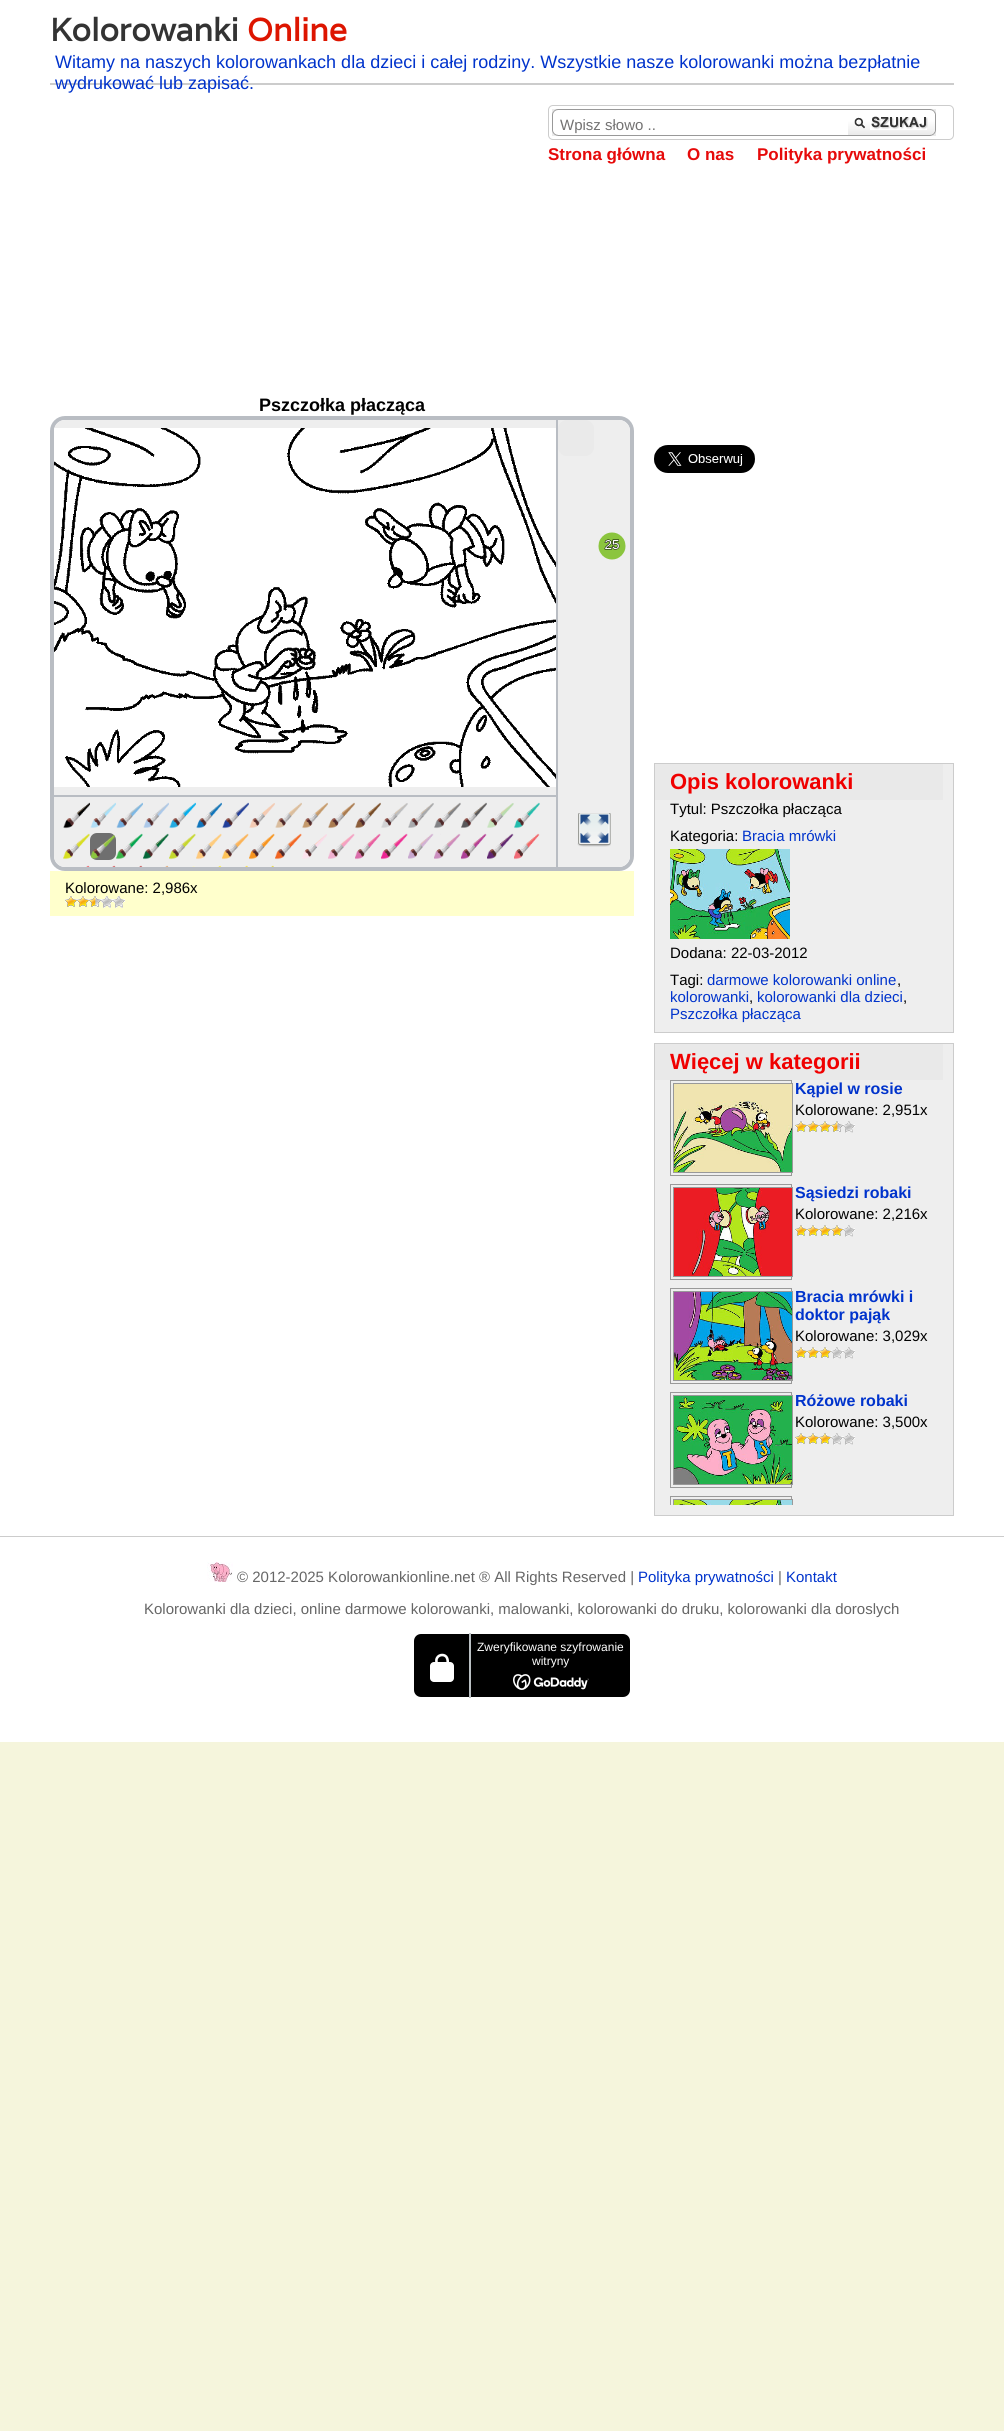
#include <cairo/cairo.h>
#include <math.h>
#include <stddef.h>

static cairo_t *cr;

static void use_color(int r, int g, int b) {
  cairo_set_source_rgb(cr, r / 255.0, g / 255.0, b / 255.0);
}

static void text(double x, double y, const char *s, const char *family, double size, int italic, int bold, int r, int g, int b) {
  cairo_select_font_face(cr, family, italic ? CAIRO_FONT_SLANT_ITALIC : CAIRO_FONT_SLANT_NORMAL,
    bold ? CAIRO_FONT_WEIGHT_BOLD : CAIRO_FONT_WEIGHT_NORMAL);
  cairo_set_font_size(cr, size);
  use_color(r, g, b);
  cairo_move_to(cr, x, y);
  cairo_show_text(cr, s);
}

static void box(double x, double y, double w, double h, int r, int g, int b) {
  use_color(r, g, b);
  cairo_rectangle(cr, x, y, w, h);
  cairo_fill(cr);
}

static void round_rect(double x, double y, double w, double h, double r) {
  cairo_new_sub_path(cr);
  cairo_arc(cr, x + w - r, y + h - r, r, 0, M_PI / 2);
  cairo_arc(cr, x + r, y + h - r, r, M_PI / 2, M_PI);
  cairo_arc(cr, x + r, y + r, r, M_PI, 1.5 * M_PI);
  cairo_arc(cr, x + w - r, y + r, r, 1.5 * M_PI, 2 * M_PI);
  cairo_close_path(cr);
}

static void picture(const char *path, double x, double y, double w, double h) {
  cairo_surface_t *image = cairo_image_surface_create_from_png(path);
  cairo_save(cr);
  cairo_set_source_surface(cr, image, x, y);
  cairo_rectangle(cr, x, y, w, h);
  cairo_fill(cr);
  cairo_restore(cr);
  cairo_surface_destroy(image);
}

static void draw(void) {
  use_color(245, 245, 220);
  cairo_paint(cr);
  box(0, 0, 1004, 1742, 255, 255, 255);
  box(50, 83, 904, 2, 204, 204, 204);
  round_rect(548.5, 105.5, 405, 34, 4.5);
  cairo_set_line_width(cr, 1);
  cairo_stroke(cr);
  picture("img_01.png", 552, 109, 296, 27);
  picture("img_02.png", 848, 109, 88, 27);
  round_rect(52, 418, 580, 451, 13);
  use_color(185, 189, 195);
  cairo_set_line_width(cr, 4);
  cairo_stroke(cr);
  use_color(238, 238, 238);
  cairo_new_path(cr);
  cairo_move_to(cr, 65, 420);
  cairo_line_to(cr, 558, 420);
  cairo_line_to(cr, 558, 795);
  cairo_line_to(cr, 54, 795);
  cairo_line_to(cr, 54, 431);
  cairo_curve_to(cr, 54, 425, 59, 420, 65, 420);
  cairo_close_path(cr);
  cairo_fill(cr);
  box(556, 420, 2, 375, 185, 189, 195);
  picture("img_03.png", 54, 428, 502, 359);
  picture("img_04.png", 54, 428, 502, 359);
  use_color(238, 238, 238);
  cairo_new_path(cr);
  cairo_move_to(cr, 558, 420);
  cairo_line_to(cr, 619, 420);
  cairo_curve_to(cr, 625, 420, 630, 425, 630, 431);
  cairo_line_to(cr, 630, 856);
  cairo_curve_to(cr, 630, 862, 625, 867, 619, 867);
  cairo_line_to(cr, 558, 867);
  cairo_close_path(cr);
  cairo_fill(cr);
  use_color(234, 234, 234);
  round_rect(558, 420, 36, 36, 9);
  cairo_fill(cr);
  picture("img_05.png", 598, 532, 28, 28);
  use_color(238, 238, 238);
  cairo_new_path(cr);
  cairo_move_to(cr, 54, 795);
  cairo_line_to(cr, 558, 795);
  cairo_line_to(cr, 558, 867);
  cairo_line_to(cr, 65, 867);
  cairo_curve_to(cr, 59, 867, 54, 862, 54, 856);
  cairo_close_path(cr);
  cairo_fill(cr);
  box(54, 795, 504, 2, 185, 189, 195);
  box(556, 795, 2, 72, 185, 189, 195);
  picture("img_06.png", 63, 802, 27, 27);
  picture("img_07.png", 90, 802, 26, 26);
  picture("img_08.png", 116, 802, 27, 27);
  picture("img_09.png", 143, 802, 26, 26);
  picture("img_10.png", 169, 802, 27, 27);
  picture("img_11.png", 196, 802, 26, 27);
  picture("img_12.png", 222, 802, 27, 27);
  picture("img_13.png", 249, 803, 26, 25);
  picture("img_14.png", 275, 802, 27, 26);
  picture("img_15.png", 302, 802, 26, 27);
  picture("img_16.png", 328, 802, 27, 27);
  picture("img_17.png", 355, 802, 26, 27);
  picture("img_18.png", 381, 803, 27, 25);
  picture("img_19.png", 408, 803, 26, 25);
  picture("img_20.png", 434, 802, 27, 27);
  picture("img_21.png", 461, 802, 26, 26);
  picture("img_22.png", 487, 803, 27, 25);
  picture("img_23.png", 514, 802, 26, 27);
  picture("img_24.png", 63, 833, 27, 27);
  use_color(111, 111, 111);
  round_rect(90, 833, 26, 27, 7);
  cairo_fill(cr);
  picture("img_25.png", 90, 835, 25, 24);
  picture("img_26.png", 116, 833, 27, 27);
  picture("img_27.png", 143, 833, 26, 27);
  picture("img_28.png", 169, 833, 27, 27);
  picture("img_29.png", 196, 833, 26, 27);
  picture("img_30.png", 222, 833, 27, 27);
  picture("img_31.png", 249, 833, 26, 27);
  picture("img_32.png", 275, 833, 27, 27);
  picture("img_33.png", 302, 834, 25, 25);
  picture("img_34.png", 328, 833, 27, 26);
  picture("img_35.png", 355, 833, 26, 27);
  picture("img_36.png", 381, 833, 27, 27);
  picture("img_37.png", 408, 833, 26, 26);
  picture("img_38.png", 434, 833, 27, 26);
  picture("img_39.png", 461, 833, 26, 27);
  picture("img_40.png", 487, 833, 27, 27);
  picture("img_41.png", 514, 833, 26, 27);
  picture("img_42.png", 86, 865, 4, 2);
  picture("img_43.png", 112, 865, 4, 2);
  picture("img_44.png", 139, 865, 4, 2);
  picture("img_45.png", 165, 865, 4, 2);
  picture("img_46.png", 192, 866, 3, 1);
  picture("img_47.png", 218, 865, 4, 2);
  picture("img_48.png", 245, 865, 3, 2);
  picture("img_49.png", 271, 865, 3, 2);
  picture("img_50.png", 577, 813, 34, 34);
  box(50, 871, 584, 45, 255, 255, 204);
  picture("img_51.png", 65, 896, 12, 11);
  picture("img_51.png", 77, 896, 12, 11);
  picture("img_52.png", 89, 896, 12, 11);
  picture("img_53.png", 101, 896, 12, 12);
  picture("img_53.png", 113, 896, 12, 12);
  picture("img_54.png", 654, 445, 101, 28);
  use_color(238, 238, 238);
  cairo_rectangle(cr, 654.5, 763.5, 299, 269);
  cairo_fill_preserve(cr);
  use_color(204, 204, 204);
  cairo_set_line_width(cr, 1);
  cairo_stroke(cr);
  box(655, 764, 288, 36, 233, 233, 233);
  picture("img_55.png", 670, 849, 120, 90);
  use_color(238, 238, 238);
  cairo_rectangle(cr, 654.5, 1043.5, 299, 472);
  cairo_fill_preserve(cr);
  use_color(204, 204, 204);
  cairo_stroke(cr);
  box(655, 1044, 288, 36, 233, 233, 233);
  cairo_rectangle(cr, 670.5, 1080.5, 121, 95);
  use_color(153, 153, 153);
  cairo_stroke(cr);
  cairo_rectangle(cr, 673.5, 1083.5, 119, 89);
  cairo_stroke(cr);
  picture("img_56.png", 674, 1084, 118, 88);
  picture("img_57.png", 795, 1121, 12, 11);
  picture("img_57.png", 807, 1121, 12, 11);
  picture("img_57.png", 819, 1121, 12, 11);
  picture("img_58.png", 831, 1121, 12, 11);
  picture("img_59.png", 843, 1121, 12, 12);
  cairo_rectangle(cr, 670.5, 1184.5, 121, 95);
  cairo_stroke(cr);
  cairo_rectangle(cr, 673.5, 1187.5, 119, 89);
  cairo_stroke(cr);
  picture("img_60.png", 674, 1188, 118, 88);
  picture("img_57.png", 795, 1225, 12, 11);
  picture("img_57.png", 807, 1225, 12, 11);
  picture("img_57.png", 819, 1225, 12, 11);
  picture("img_57.png", 831, 1225, 12, 11);
  picture("img_59.png", 843, 1225, 12, 12);
  cairo_rectangle(cr, 670.5, 1288.5, 121, 95);
  cairo_stroke(cr);
  cairo_rectangle(cr, 673.5, 1291.5, 119, 89);
  cairo_stroke(cr);
  picture("img_61.png", 674, 1292, 118, 88);
  picture("img_57.png", 795, 1347, 12, 11);
  picture("img_57.png", 807, 1347, 12, 11);
  picture("img_57.png", 819, 1347, 12, 11);
  picture("img_59.png", 831, 1347, 12, 12);
  picture("img_59.png", 843, 1347, 12, 12);
  cairo_rectangle(cr, 670.5, 1392.5, 121, 95);
  cairo_stroke(cr);
  cairo_rectangle(cr, 673.5, 1395.5, 119, 89);
  cairo_stroke(cr);
  picture("img_62.png", 674, 1396, 118, 88);
  picture("img_57.png", 795, 1433, 12, 11);
  picture("img_57.png", 807, 1433, 12, 11);
  picture("img_57.png", 819, 1433, 12, 11);
  picture("img_59.png", 831, 1433, 12, 12);
  picture("img_59.png", 843, 1433, 12, 12);
  box(0, 1536, 1004, 1, 204, 204, 204);
  picture("img_64.png", 207, 1562, 26, 20);
  use_color(0, 0, 0);
  round_rect(413, 1633, 218, 65, 8);
  cairo_fill_preserve(cr);
  use_color(255, 255, 255);
  cairo_set_line_width(cr, 2);
  cairo_stroke(cr);
  cairo_new_path(cr);
  cairo_move_to(cr, 447.5, 1671);
  cairo_curve_to(cr, 447.5, 1668, 448.5, 1661, 447, 1658);
  cairo_curve_to(cr, 445.5, 1654, 439, 1654, 437, 1658);
  cairo_curve_to(cr, 436, 1659.5, 436.5, 1661.5, 436.5, 1663);
  cairo_set_line_width(cr, 2.6);
  cairo_set_line_cap(cr, CAIRO_LINE_CAP_ROUND);
  cairo_stroke(cr);
  round_rect(430, 1662, 24, 20, 4);
  cairo_fill(cr);
  box(469, 1633, 2, 65, 186, 192, 195);
  picture("img_65.png", 513, 1674, 76, 16);
  text(50, 41, "Kolorowanki", "Varela", 32, 0, 1, 51, 51, 51);
  text(247, 41, "Online", "Varela", 32, 0, 1, 221, 21, 0);
  text(55, 68, "Witamy na naszych kolorowankach dla dzieci i całej rodziny. Wszystkie nasze kolorowanki można bezpłatnie", "Liberation Sans", 18, 0, 0, 0, 51, 204);
  text(55, 89, "wydrukować lub zapisać.", "Liberation Sans", 18, 0, 0, 0, 51, 204);
  text(560, 130, "Wpisz słowo ..", "Liberation Sans", 15, 0, 0, 115, 114, 114);
  text(548, 160, "Strona główna", "Liberation Sans", 17, 0, 1, 230, 10, 10);
  text(687, 160, "O nas", "Liberation Sans", 17, 0, 1, 230, 10, 10);
  text(757, 160, "Polityka prywatności", "Liberation Sans", 17, 0, 1, 230, 10, 10);
  text(259, 411, "Pszczołka płacząca", "Liberation Sans", 18, 0, 1, 0, 0, 0);
  text(65, 893, "Kolorowane: 2,986x", "Liberation Sans", 15, 0, 0, 0, 0, 0);
  text(670, 789, "Opis kolorowanki", "Liberation Sans", 22, 0, 1, 240, 0, 0);
  text(670, 814, "Tytul: Pszczołka płacząca", "Liberation Sans", 15, 0, 0, 0, 0, 0);
  text(670, 841, "Kategoria:", "Liberation Sans", 15, 0, 0, 0, 0, 0);
  text(742, 841, "Bracia mrówki", "Liberation Sans", 15, 0, 0, 0, 51, 204);
  text(670, 958, "Dodana: 22-03-2012", "Liberation Sans", 15, 0, 0, 0, 0, 0);
  text(670, 985, "Tagi:", "Liberation Sans", 15, 0, 0, 0, 0, 0);
  text(707, 985, "darmowe kolorowanki online", "Liberation Sans", 15, 0, 0, 0, 51, 204);
  text(897, 985, ",", "Liberation Sans", 15, 0, 0, 0, 0, 0);
  text(670, 1002, "kolorowanki", "Liberation Sans", 15, 0, 0, 0, 51, 204);
  text(749, 1002, ",", "Liberation Sans", 15, 0, 0, 0, 0, 0);
  text(757, 1002, "kolorowanki dla dzieci", "Liberation Sans", 15, 0, 0, 0, 51, 204);
  text(903, 1002, ",", "Liberation Sans", 15, 0, 0, 0, 0, 0);
  text(670, 1019, "Pszczołka płacząca", "Liberation Sans", 15, 0, 0, 0, 51, 204);
  text(670, 1069, "Więcej w kategorii", "Liberation Sans", 22, 0, 1, 240, 0, 0);
  text(795, 1094, "Kąpiel w rosie", "Liberation Sans", 16, 0, 1, 0, 51, 204);
  text(795, 1115, "Kolorowane: 2,951x", "Liberation Sans", 15, 0, 0, 0, 0, 0);
  text(795, 1198, "Sąsiedzi robaki", "Liberation Sans", 16, 0, 1, 0, 51, 204);
  text(795, 1219, "Kolorowane: 2,216x", "Liberation Sans", 15, 0, 0, 0, 0, 0);
  text(795, 1302, "Bracia mrówki i", "Liberation Sans", 16, 0, 1, 0, 51, 204);
  text(795, 1320, "doktor pająk", "Liberation Sans", 16, 0, 1, 0, 51, 204);
  text(795, 1341, "Kolorowane: 3,029x", "Liberation Sans", 15, 0, 0, 0, 0, 0);
  text(795, 1406, "Różowe robaki", "Liberation Sans", 16, 0, 1, 0, 51, 204);
  text(795, 1427, "Kolorowane: 3,500x", "Liberation Sans", 15, 0, 0, 0, 0, 0);
  text(237, 1582, "© 2012-2025 Kolorowankionline.net ® All Rights Reserved |", "Liberation Sans", 15, 0, 0, 102, 102, 102);
  text(638, 1582, "Polityka prywatności", "Liberation Sans", 15, 0, 0, 0, 51, 204);
  text(778, 1582, "|", "Liberation Sans", 15, 0, 0, 102, 102, 102);
  text(786, 1582, "Kontakt", "Liberation Sans", 15, 0, 0, 0, 51, 204);
  cairo_save(cr);
  cairo_rectangle(cr, 655, 1080, 288, 425);
  cairo_clip(cr);
  cairo_rectangle(cr, 670.5, 1496.5, 121, 95);
  use_color(153, 153, 153);
  cairo_set_line_width(cr, 1);
  cairo_set_line_cap(cr, CAIRO_LINE_CAP_BUTT);
  cairo_stroke(cr);
  cairo_rectangle(cr, 673.5, 1499.5, 119, 89);
  cairo_stroke(cr);
  cairo_restore(cr);
  picture("img_63.png", 674, 1500, 118, 5);
  text(144, 1614, "Kolorowanki dla dzieci, online darmowe kolorowanki, malowanki, kolorowanki do druku, kolorowanki dla doroslych", "Liberation Sans", 15, 0, 0, 102, 102, 102);
  text(477, 1651, "Zweryfikowane szyfrowanie", "Liberation Sans", 12, 0, 0, 255, 255, 255);
  text(532, 1665, "witryny", "Liberation Sans", 12, 0, 0, 255, 255, 255);
}

int main(void) {
  cairo_surface_t *surface = cairo_image_surface_create(CAIRO_FORMAT_RGB24, 1004, 2431);
  cr = cairo_create(surface);
  cairo_font_options_t *options = cairo_font_options_create();
  cairo_font_options_set_hint_metrics(options, CAIRO_HINT_METRICS_OFF);
  cairo_font_options_set_hint_style(options, CAIRO_HINT_STYLE_NONE);
  cairo_set_font_options(cr, options);
  cairo_set_miter_limit(cr, 4);
  draw();
  cairo_surface_write_to_png(surface, "out.png");
  cairo_font_options_destroy(options);
  cairo_destroy(cr);
  cairo_surface_destroy(surface);
  return 0;
}
